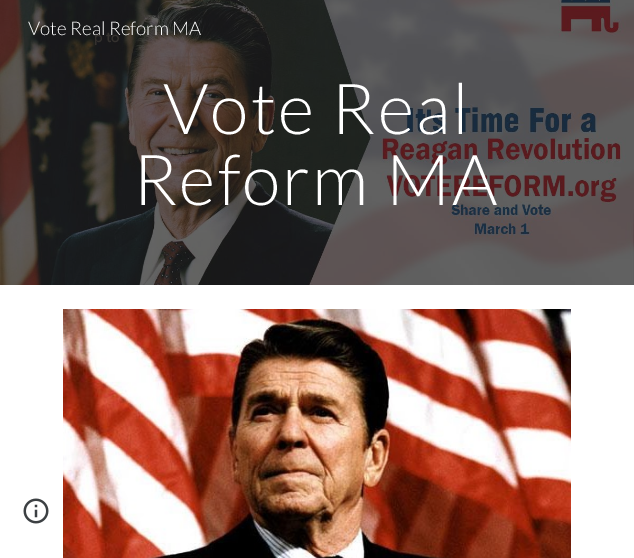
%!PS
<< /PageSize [634 558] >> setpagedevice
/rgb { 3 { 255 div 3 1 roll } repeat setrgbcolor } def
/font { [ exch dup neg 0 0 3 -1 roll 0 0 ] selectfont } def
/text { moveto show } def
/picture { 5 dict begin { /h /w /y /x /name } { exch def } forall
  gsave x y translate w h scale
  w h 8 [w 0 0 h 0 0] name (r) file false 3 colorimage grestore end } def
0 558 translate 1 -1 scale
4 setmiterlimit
255 255 255 rgb
0 0 634 558 rectfill
(img_01.rgb) 0 0 634 285 picture
(img_02.rgb) 63 309 508 249 picture
(img_03.rgb) 23 498 26 26 picture
/Lato-Light 18.75 font
(Vote Real Reform MA) 28 35 text
/Lato-Light 70.5 font
163 134 moveto 2 0 (Vote Real) ashow
133 205 moveto 2 0 (Reform MA) ashow
/GoogleSans-Medium 14 font
52 49 46 rgb
(p to) 94 42 text
showpage
